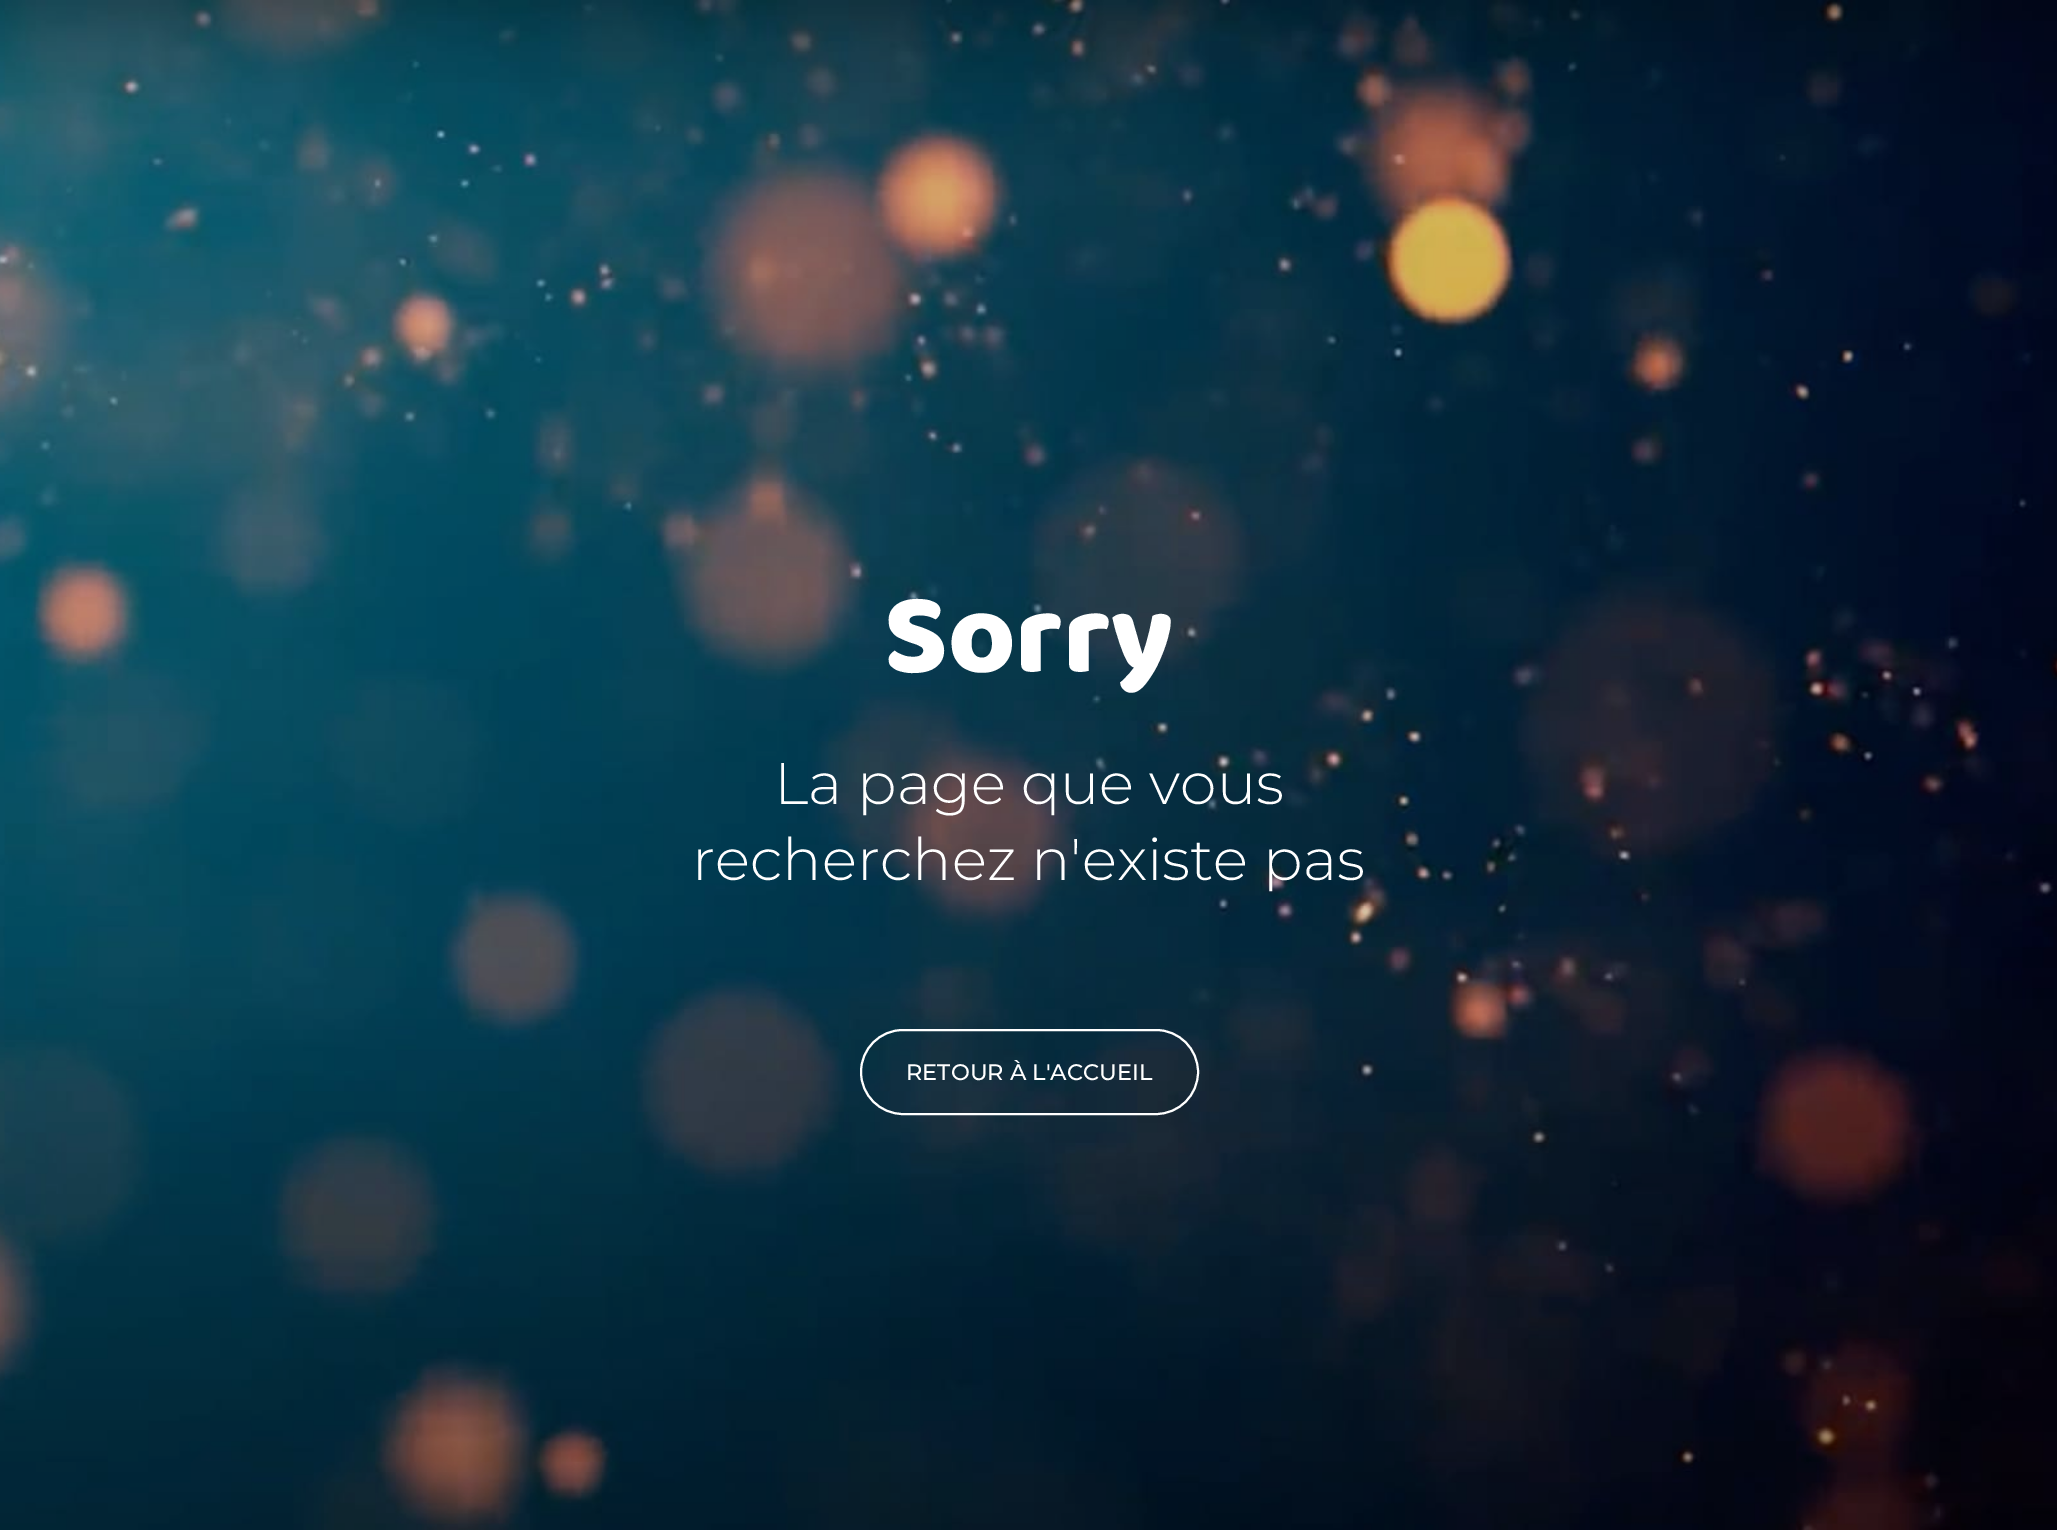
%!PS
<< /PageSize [2057 1530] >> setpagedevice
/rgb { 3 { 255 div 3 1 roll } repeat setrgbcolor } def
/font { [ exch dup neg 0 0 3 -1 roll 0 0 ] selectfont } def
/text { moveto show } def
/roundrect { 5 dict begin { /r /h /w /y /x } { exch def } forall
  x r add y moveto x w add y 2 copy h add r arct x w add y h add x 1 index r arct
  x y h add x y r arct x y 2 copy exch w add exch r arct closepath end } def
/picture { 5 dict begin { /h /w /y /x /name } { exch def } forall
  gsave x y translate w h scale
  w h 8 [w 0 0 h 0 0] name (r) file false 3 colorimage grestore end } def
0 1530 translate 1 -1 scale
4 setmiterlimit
255 255 255 rgb
0 0 2057 1530 rectfill
(img_01.rgb) 0 0 2057 1530 picture
2 setlinewidth
861 1030 337 84 42 roundrect stroke
/BalooBhai2-ExtraBold 115.5 font
(Sorry) 884 671 text
/Montserrat-Light 58.5 font
(La page que vous) 774 804 text
(recherchez n'existe pas) 692 880 text
/Montserrat-Medium 22.5 font
(RETOUR À L'ACCUEIL) 906 1080 text
showpage
